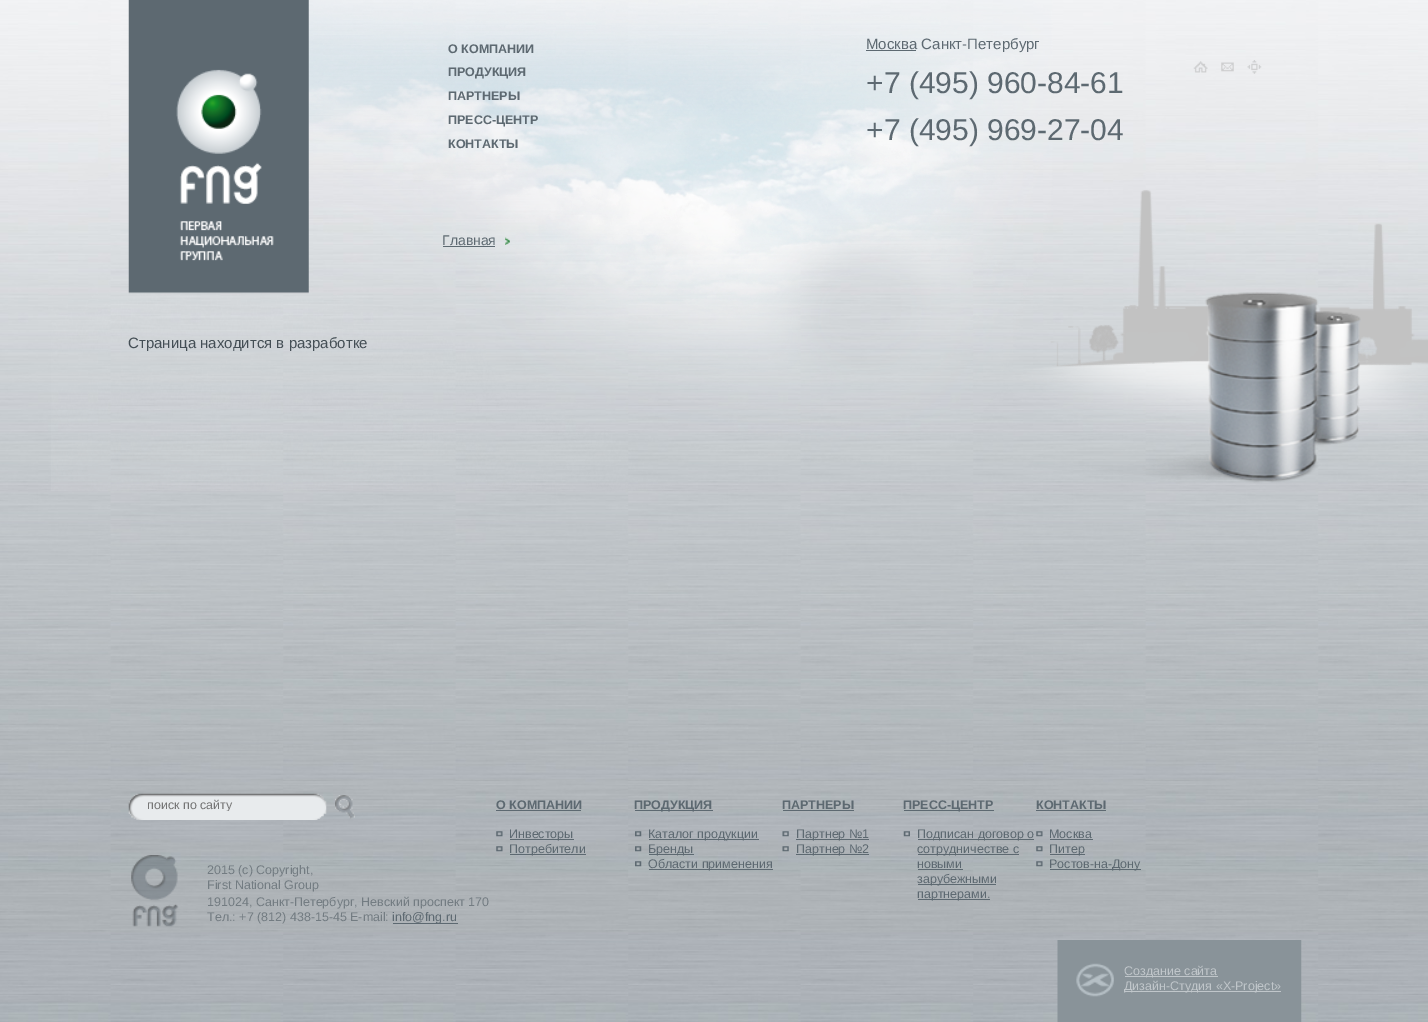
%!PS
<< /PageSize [1428 1022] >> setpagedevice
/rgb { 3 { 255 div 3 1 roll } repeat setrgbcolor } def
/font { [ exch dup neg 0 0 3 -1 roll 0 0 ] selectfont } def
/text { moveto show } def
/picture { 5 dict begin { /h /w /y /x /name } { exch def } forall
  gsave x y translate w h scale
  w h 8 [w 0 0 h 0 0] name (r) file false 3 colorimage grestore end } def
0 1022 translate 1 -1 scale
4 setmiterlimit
255 255 255 rgb
0 0 1428 1022 rectfill
(img_01.rgb) 0 0 1428 1022 picture
(img_02.rgb) 51 0 1377 491 picture
(img_03.rgb) 128 0 181 294 picture
93 105 113 rgb
866 50 50 1 rectfill
(img_04.rgb) 1193 61 15 12 picture
(img_05.rgb) 1221 62 13 10 picture
(img_06.rgb) 1247 60 15 14 picture
443 246 52 1 rectfill
(img_07.rgb) 505 237 5 8 picture
(img_08.rgb) 128 793 199 27 picture
(img_09.rgb) 335 795 20 24 picture
(img_10.rgb) 131 855 48 72 picture
393 923 65 1 rectfill
496 810 85 1 rectfill
(img_11.rgb) 496 831 7 6 picture
510 839 64 1 rectfill
(img_12.rgb) 496 846 7 6 picture
510 854 76 1 rectfill
635 810 78 1 rectfill
(img_13.rgb) 635 831 7 6 picture
649 839 110 1 rectfill
(img_14.rgb) 635 846 7 6 picture
649 854 45 1 rectfill
(img_15.rgb) 635 861 7 6 picture
649 869 124 1 rectfill
783 810 71 1 rectfill
(img_16.rgb) 782 831 7 6 picture
796 839 73 1 rectfill
(img_17.rgb) 782 846 7 6 picture
796 854 73 1 rectfill
904 810 90 1 rectfill
(img_18.rgb) 903 831 7 6 picture
918 839 116 1 rectfill
918 854 101 1 rectfill
918 869 45 1 rectfill
918 884 78 1 rectfill
918 899 72 1 rectfill
1036 810 70 1 rectfill
(img_19.rgb) 1036 831 7 6 picture
1050 839 43 1 rectfill
(img_20.rgb) 1036 846 7 6 picture
1050 854 35 1 rectfill
(img_21.rgb) 1036 861 7 6 picture
1050 869 91 1 rectfill
(img_22.rgb) 1057 940 245 82 picture
192 198 202 rgb
1125 976 93 1 rectfill
1125 991 156 1 rectfill
/LiberationSans-Bold 12.5 font
93 105 113 rgb
(О КОМПАНИИ) 448 53 text
(ПРОДУКЦИЯ) 448 76 text
(ПАРТНЕРЫ) 448 100 text
(ПРЕСС-ЦЕНТР) 448 124 text
(КОНТАКТЫ) 448 148 text
/LiberationSans-Regular 15 font
(Москва Санкт-Петербург) 866 49 text
/LiberationSans-Regular 30 font
(+7 \(495\) 960-84-61) 866 93 text
(+7 \(495\) 969-27-04) 866 140 text
/LiberationSans-Regular 14 font
(Главная) 442 245 text
/LiberationSans-Regular 15 font
68 78 85 rgb
(Страница находится в разработке) 128 348 text
gsave
148 798 165 13 rectclip
/LiberationSans-Regular 12.5 font
117 117 117 rgb
(поиск по сайту) 147 809 text
grestore
/LiberationSans-Regular 12.5 font
115 124 130 rgb
(2015 \(с\) Copyright,) 207 874 text
(First National Group) 207 889 text
(191024, Санкт-Петербург, Невский проспект 170) 207 906 text
(Тел.: +7 \(812\) 438-15-45 E-mail:) 207 921 text
93 105 113 rgb
(info@fng.ru) 392 921 text
/LiberationSans-Bold 12.5 font
(О КОМПАНИИ) 496 809 text
/LiberationSans-Regular 12.5 font
(Инвесторы) 509 838 text
(Потребители) 509 853 text
/LiberationSans-Bold 12.5 font
(ПРОДУКЦИЯ) 634 809 text
/LiberationSans-Regular 12.5 font
(Каталог продукции) 648 838 text
(Бренды) 648 853 text
(Области применения) 648 868 text
/LiberationSans-Bold 12.5 font
(ПАРТНЕРЫ) 782 809 text
/LiberationSans-Regular 12.5 font
(Партнер №1) 796 838 text
(Партнер №2) 796 853 text
/LiberationSans-Bold 12.5 font
(ПРЕСС-ЦЕНТР) 903 809 text
/LiberationSans-Regular 12.5 font
(Подписан договор о) 917 838 text
(сотрудничестве с) 917 853 text
(новыми) 917 868 text
(зарубежными) 917 883 text
(партнерами.) 917 898 text
/LiberationSans-Bold 12.5 font
(КОНТАКТЫ) 1036 809 text
/LiberationSans-Regular 12.5 font
(Москва) 1049 838 text
(Питер) 1049 853 text
(Ростов-на-Дону) 1049 868 text
192 198 202 rgb
(Создание сайта) 1124 975 text
(Дизайн-Студия «X-Project») 1124 990 text
showpage
